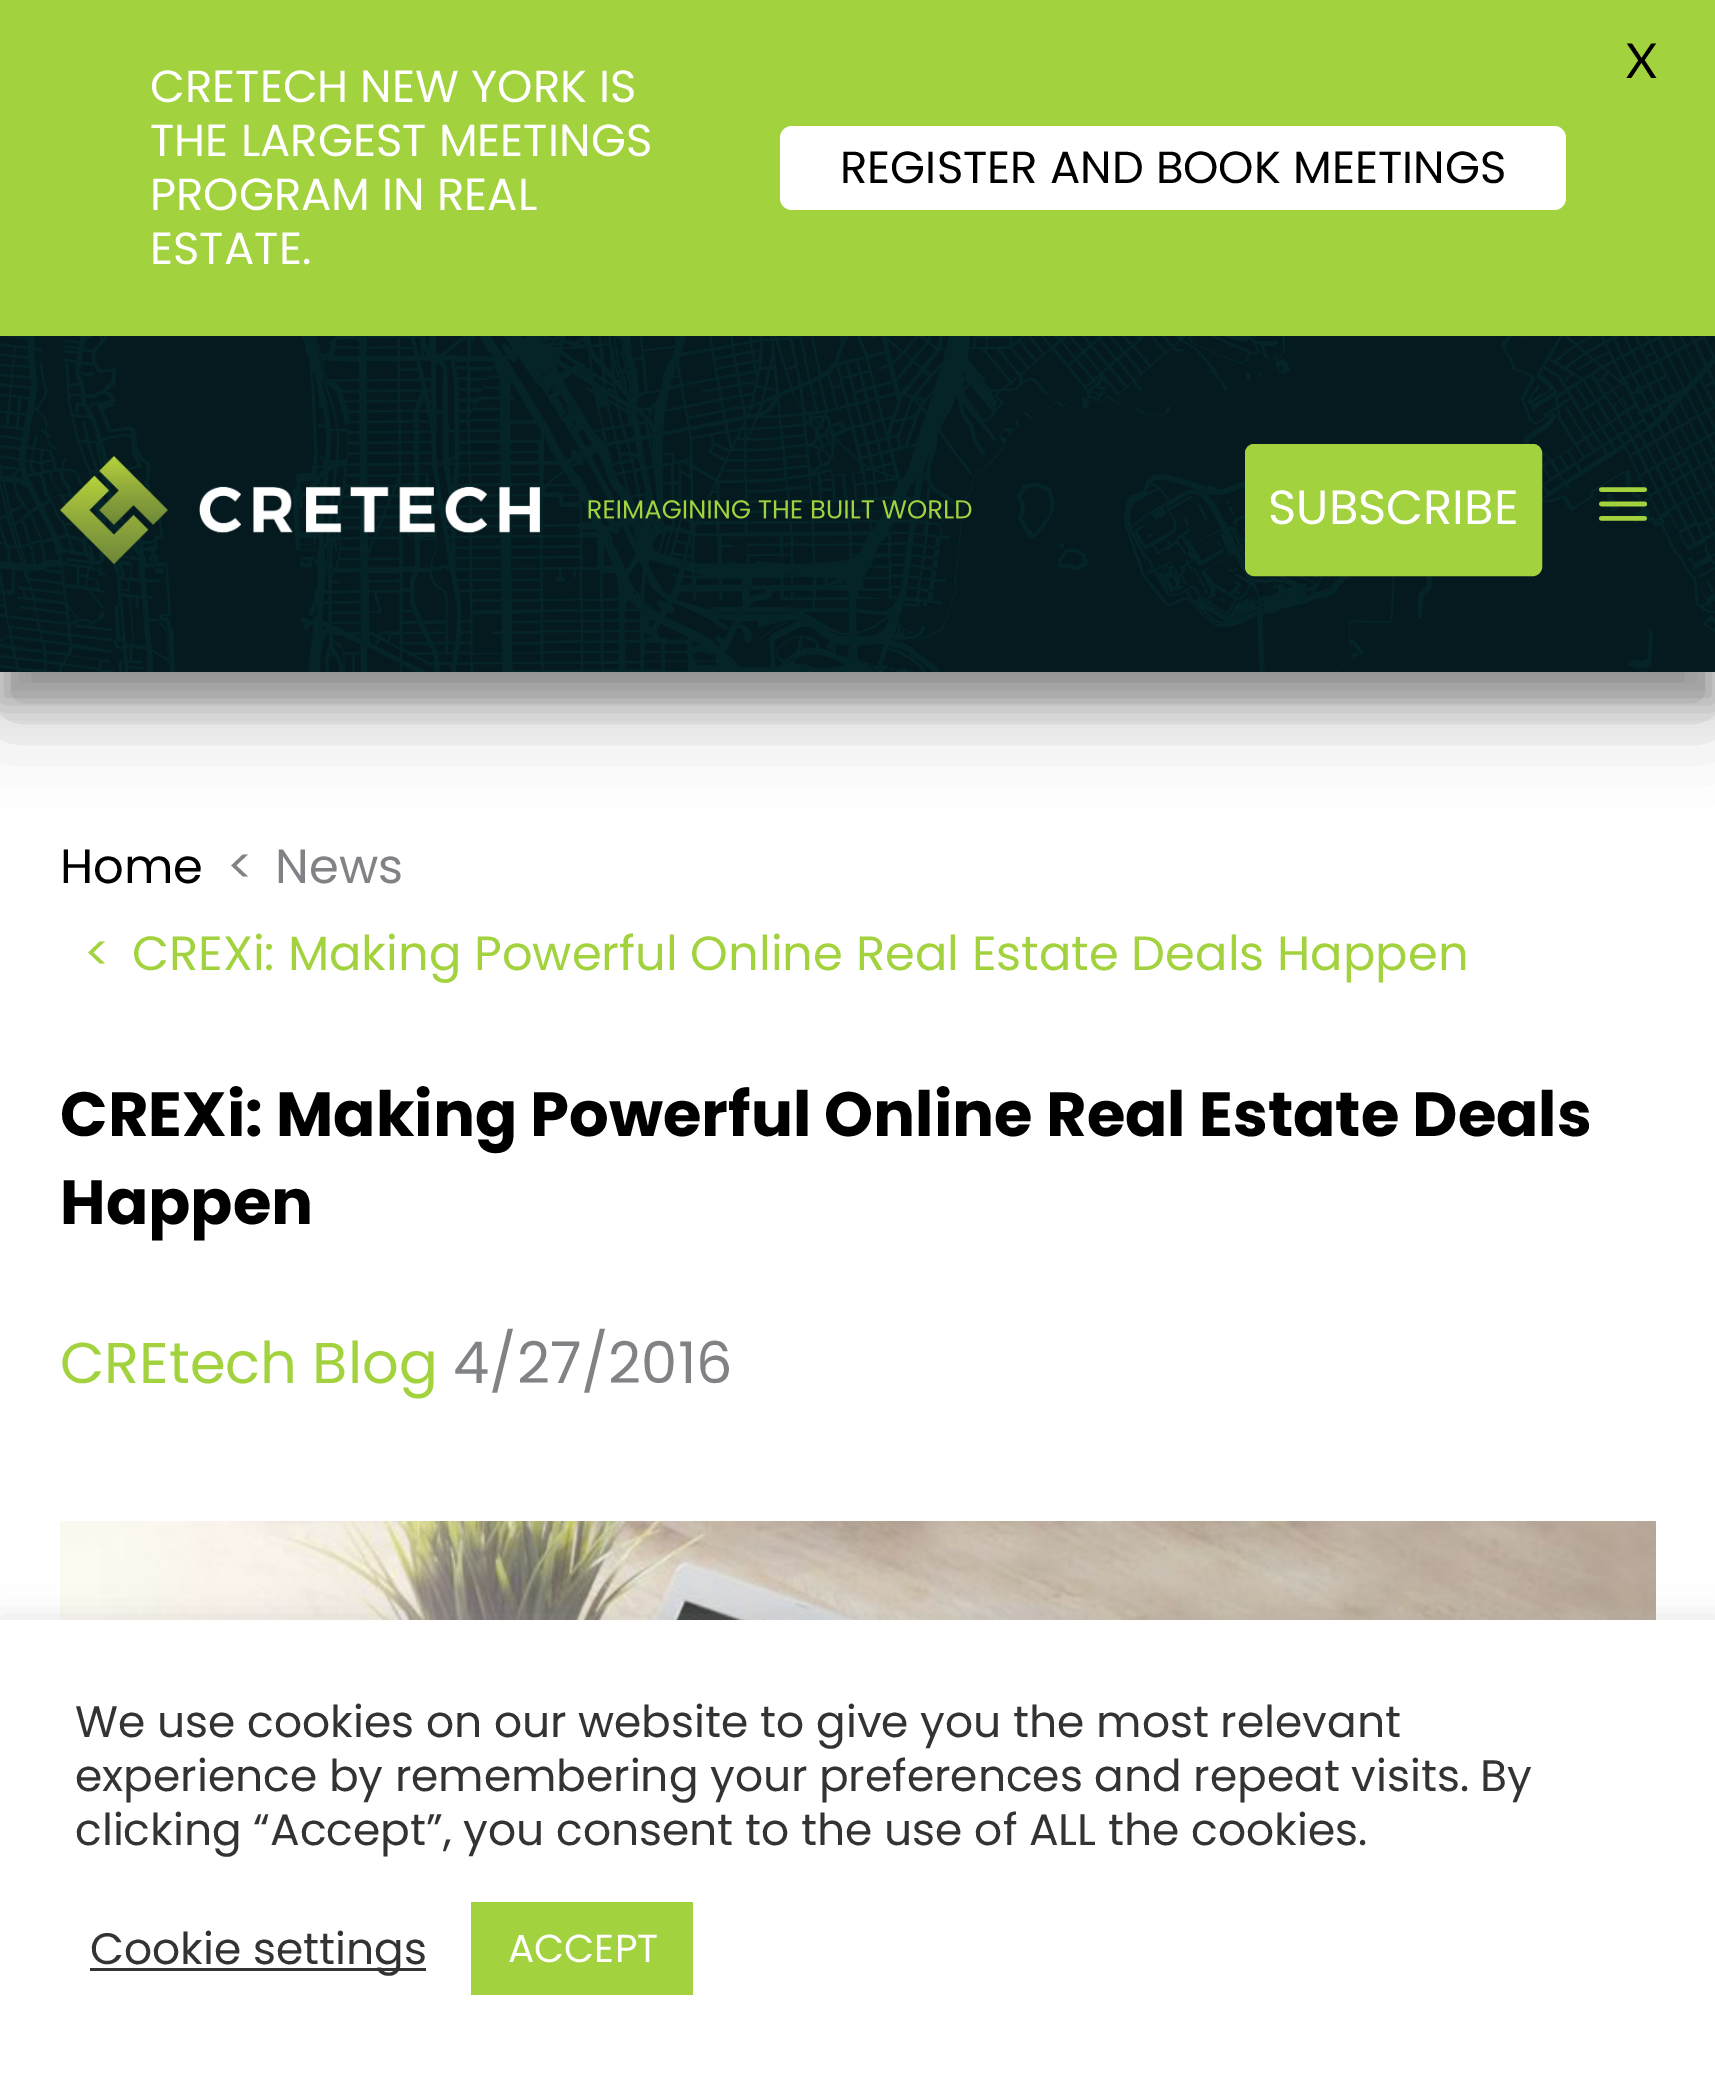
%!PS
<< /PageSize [1715 2085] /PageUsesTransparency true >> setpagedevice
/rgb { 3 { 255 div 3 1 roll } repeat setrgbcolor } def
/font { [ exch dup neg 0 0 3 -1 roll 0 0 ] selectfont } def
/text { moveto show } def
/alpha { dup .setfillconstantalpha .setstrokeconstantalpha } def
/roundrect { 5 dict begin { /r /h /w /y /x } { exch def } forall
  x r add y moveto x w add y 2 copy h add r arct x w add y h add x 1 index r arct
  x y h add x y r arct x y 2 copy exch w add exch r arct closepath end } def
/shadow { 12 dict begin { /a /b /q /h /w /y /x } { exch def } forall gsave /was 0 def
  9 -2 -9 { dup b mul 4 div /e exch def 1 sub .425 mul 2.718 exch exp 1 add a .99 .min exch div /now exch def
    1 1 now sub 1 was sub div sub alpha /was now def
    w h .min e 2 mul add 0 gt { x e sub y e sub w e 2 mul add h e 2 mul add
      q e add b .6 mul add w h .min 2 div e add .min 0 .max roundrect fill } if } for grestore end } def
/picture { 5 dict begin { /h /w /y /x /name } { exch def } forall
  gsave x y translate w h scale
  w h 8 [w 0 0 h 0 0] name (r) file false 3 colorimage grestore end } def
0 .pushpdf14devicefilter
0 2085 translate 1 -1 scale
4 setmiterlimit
255 255 255 rgb
0 0 1715 2085 rectfill
0 0 0 rgb
0 366 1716 336 0 15 0.25 shadow
0 378 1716 336 0 42 0.25 shadow
162 210 62 rgb
0 0 1715 336 rectfill
255 255 255 rgb
780 126 786 84 12 roundrect fill
(img_01.rgb) 0 336 1715 336 picture
(img_02.rgb) 60 456 480 108 picture
(img_03.rgb) 588 500 384 19 picture
162 210 62 rgb
1246.5 445.5 294 129 7.5 roundrect gsave fill grestore
3 setlinewidth
stroke
(img_04.rgb) 1599 487 48 34 picture
(img_05.rgb) 60 1521 1596 99 picture
172 171 171 rgb
0 1617 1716 465 0 15 0.3 shadow
255 255 255 rgb
0 1620 1715 465 rectfill
51 51 51 rgb
90 1968 336 3 rectfill
162 210 62 rgb
471 1902 222 93 rectfill
/Lato-Regular 48 font
0 0 0 rgb
(X) 1626 78 text
/Poppins-Regular 45 font
255 255 255 rgb
(CRETECH NEW YORK IS) 150 102 text
(THE LARGEST MEETINGS) 150 156 text
(PROGRAM IN REAL) 150 210 text
(ESTATE.) 150 264 text
0 0 0 rgb
(REGISTER AND BOOK MEETINGS) 840 183 text
/Poppins-Regular 48 font
255 255 255 rgb
(SUBSCRIBE) 1268 524 text
0 0 0 rgb
(Home) 60 883 text
128 130 133 rgb
(<) 227 883 text
(News) 275 883 text
162 210 62 rgb
(<) 84 970 text
(CREXi: Making Powerful Online Real Estate Deals Happen) 132 970 text
/Poppins-Bold 62.4 font
0 0 0 rgb
(CREXi: Making Powerful Online Real Estate Deals) 60 1136 text
(Happen) 60 1224 text
/Poppins-Regular 57.5 font
162 210 62 rgb
(CREtech Blog) 60 1383 text
128 130 133 rgb
(4/27/2016) 453 1383 text
/Poppins-Regular 44 font
51 51 51 rgb
(We use cookies on our website to give you the most relevant) 75 1737 text
75 1791 moveto -0.25 0 32 (experience by remembering your preferences and repeat visits. By) widthshow
(clicking “Accept”, you consent to the use of ALL the cookies.) 75 1845 text
(Cookie settings) 90 1964 text
/Poppins-Regular 39 font
255 255 255 rgb
(ACCEPT) 508 1962 text
.poppdf14devicefilter showpage
